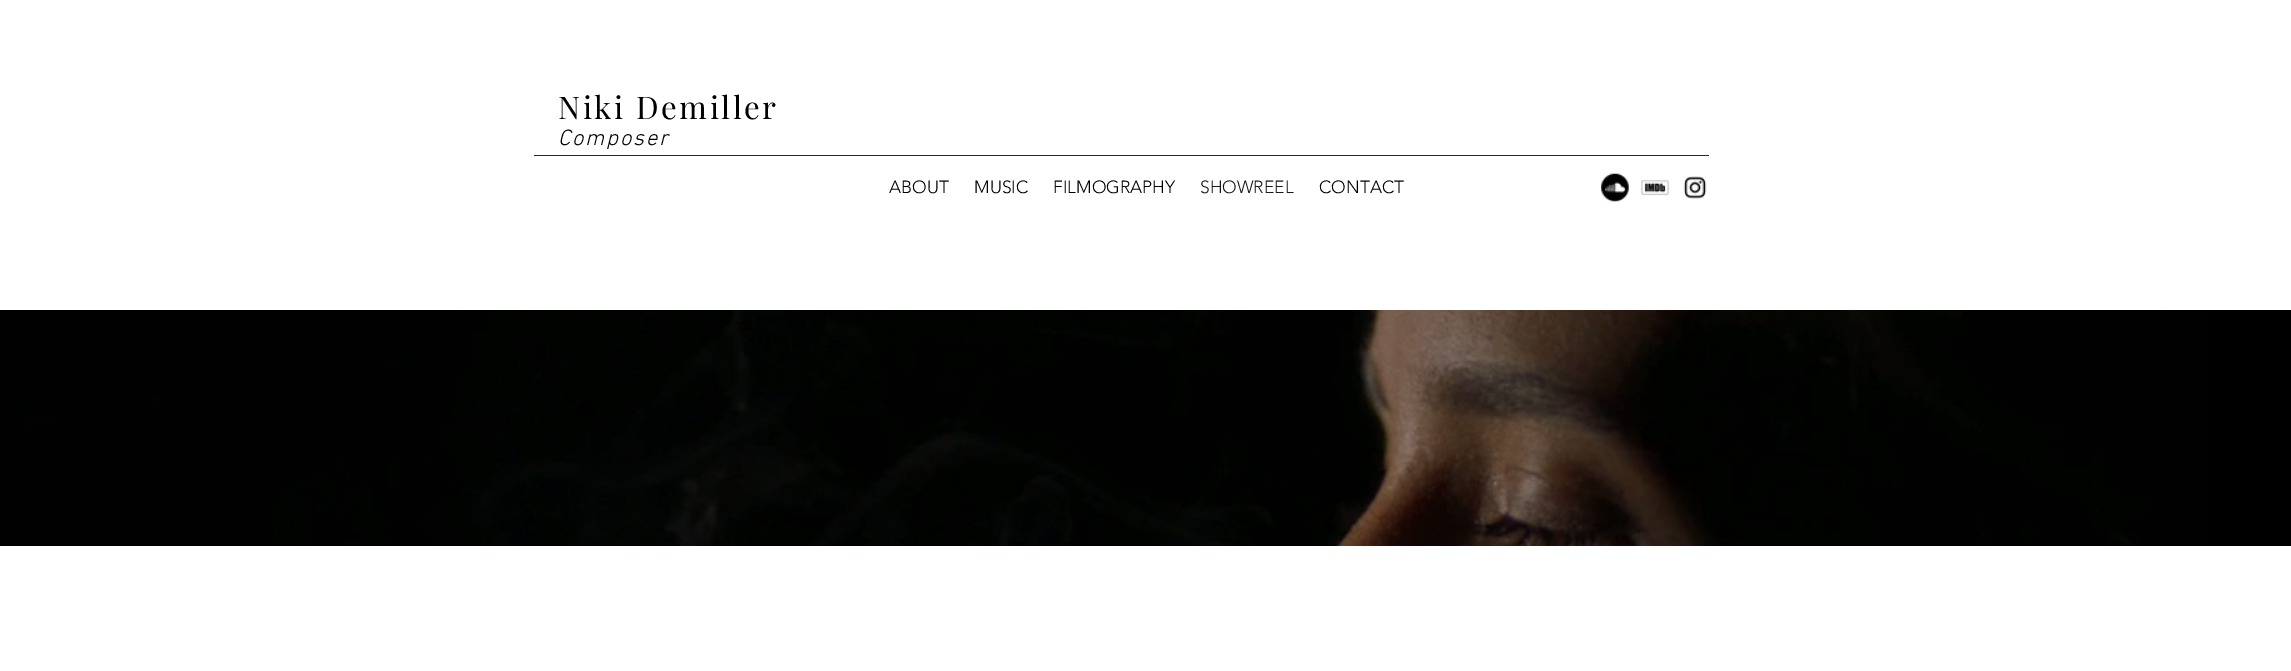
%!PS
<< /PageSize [2291 671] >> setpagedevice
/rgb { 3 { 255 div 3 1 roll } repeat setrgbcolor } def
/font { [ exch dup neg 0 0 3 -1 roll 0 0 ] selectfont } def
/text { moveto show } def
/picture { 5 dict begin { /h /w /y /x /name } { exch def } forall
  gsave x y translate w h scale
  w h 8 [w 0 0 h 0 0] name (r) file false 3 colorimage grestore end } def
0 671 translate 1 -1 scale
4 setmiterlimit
255 255 255 rgb
0 0 2291 671 rectfill
38 38 38 rgb
534 155 1175 1 rectfill
(img_01.rgb) 1601 173 28 29 picture
(img_02.rgb) 1641 180 28 16 picture
(img_03.rgb) 1683 176 24 23 picture
0 0 0 rgb
2201 310 90 236 rectfill
(img_04.rgb) 0 310 2201 236 picture
(img_05.rgb) 1298 354 270 192 picture
/PlayfairDisplay-Regular 31.25 font
558 119 moveto 2.5 0 (Niki Demiller) ashow
/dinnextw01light-LightItalic 22.5 font
558 145 moveto 1.75 0 (Composer) ashow
/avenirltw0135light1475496-Light 17.5 font
(ABOUT) 889 193 text
(MUSIC) 974 193 text
(FILMOGRAPHY) 1053 193 text
25 25 25 rgb
(SHOWREEL) 1200 193 text
0 0 0 rgb
(CONTACT) 1319 193 text
showpage
